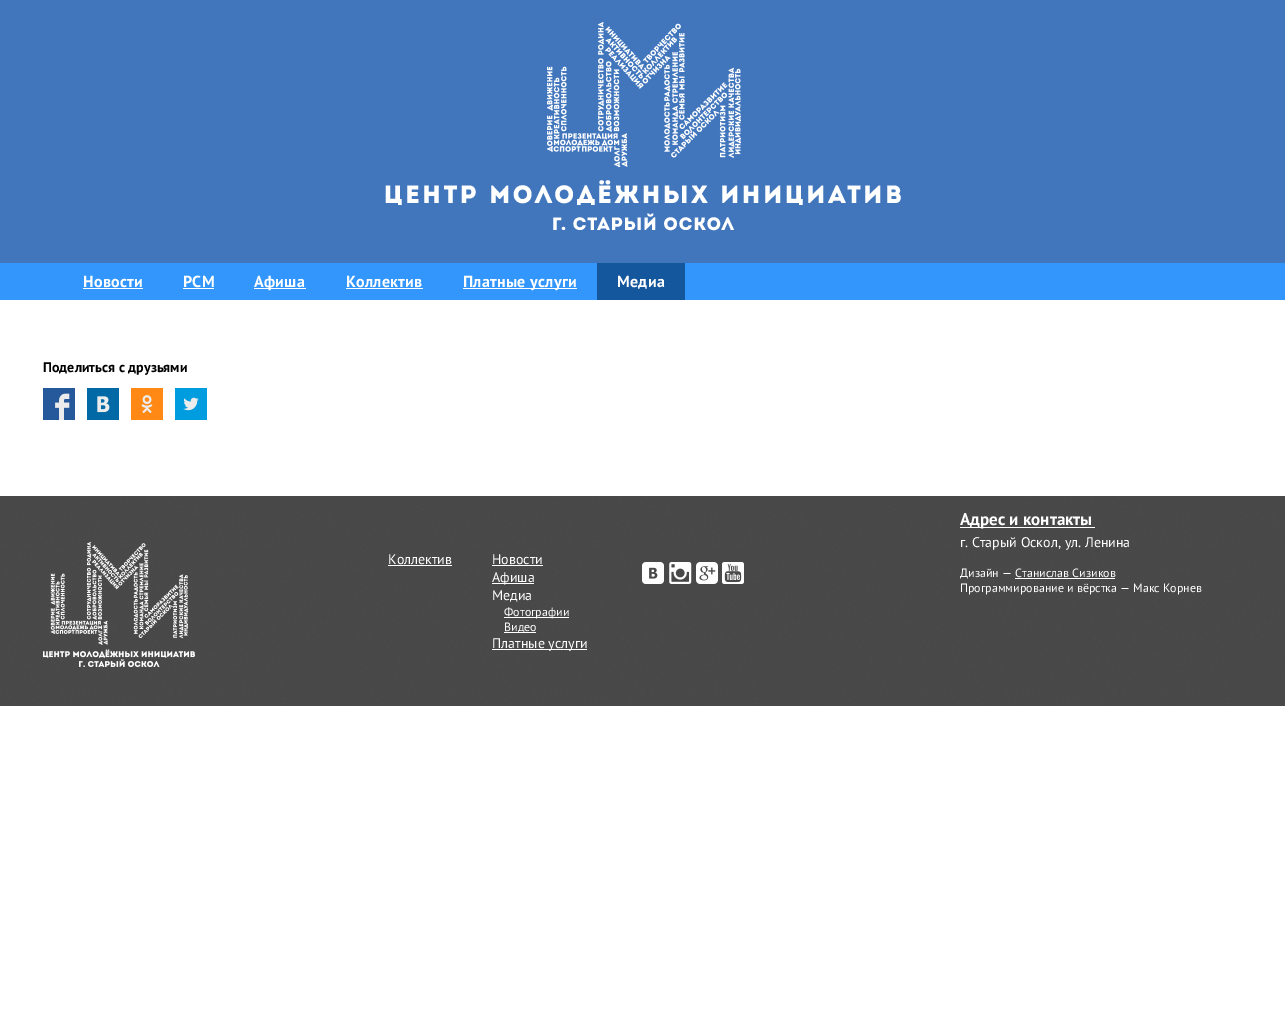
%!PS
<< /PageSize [1285 1010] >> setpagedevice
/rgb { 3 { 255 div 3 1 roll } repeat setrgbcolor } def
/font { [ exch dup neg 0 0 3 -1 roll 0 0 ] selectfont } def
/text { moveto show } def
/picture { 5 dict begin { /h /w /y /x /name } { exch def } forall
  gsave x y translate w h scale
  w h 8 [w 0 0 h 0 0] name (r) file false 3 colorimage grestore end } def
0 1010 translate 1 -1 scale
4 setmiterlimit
255 255 255 rgb
0 0 1285 1010 rectfill
65 118 188 rgb
0 0 1285 263 rectfill
(img_01.rgb) 385 22 516 209 picture
50 150 252 rgb
0 263 1285 37 rectfill
255 255 255 rgb
83 288 60 1 rectfill
183 288 31 1 rectfill
254 288 52 1 rectfill
346 288 77 1 rectfill
463 288 114 1 rectfill
20 87 156 rgb
597 263 88 37 rectfill
236 236 236 rgb
55 393 15 27 rectfill
(img_02.rgb) 43 388 32 32 picture
97 396 13 17 rectfill
(img_03.rgb) 87 388 32 32 picture
141 395 12 18 rectfill
(img_04.rgb) 131 388 32 32 picture
183 397 16 14 rectfill
(img_05.rgb) 175 388 32 32 picture
67 67 67 rgb
0 496 1285 210 rectfill
(img_06.rgb) 0 496 1285 210 picture
(img_07.rgb) 43 542 152 125 picture
255 255 255 rgb
388 565 64 1 rectfill
492 565 51 1 rectfill
492 583 42 1 rectfill
504 617 65 1 rectfill
504 632 32 1 rectfill
492 649 95 1 rectfill
(img_08.rgb) 642 562 22 22 picture
(img_09.rgb) 669 562 23 22 picture
(img_10.rgb) 696 562 22 22 picture
(img_11.rgb) 722 562 22 22 picture
960 527 135 1 rectfill
1015 578 100 1 rectfill
/PTSans-Bold 16 font
83 287 moveto 0.25 0 (Новости) ashow
183 287 moveto 0.25 0 (РСМ) ashow
254 287 moveto 0.25 0 (Афиша) ashow
346 287 moveto 0.25 0 (Коллектив) ashow
463 287 moveto 0.25 0 (Платные услуги) ashow
617 287 moveto 0.25 0 (Медиа) ashow
/PTSans-Bold 14 font
0 0 0 rgb
(Поделиться с друзьями) 43 372 text
/PTSans-Regular 14 font
255 255 255 rgb
(Коллектив) 388 564 text
(Новости) 492 564 text
(Афиша) 492 582 text
(Медиа) 492 600 text
/PTSans-Regular 12 font
(Фотографии) 504 616 text
(Видео) 504 631 text
/PTSans-Regular 14 font
(Платные услуги) 492 648 text
/PTSans-Bold 17 font
(Адрес и контакты) 960 525 text
/PTSans-Regular 14 font
(г. Старый Оскол, ул. Ленина) 960 547 text
/PTSans-Regular 12 font
(Дизайн — Станислав Сизиков) 960 577 text
(Программирование и вёрстка — Макс Корнев) 960 592 text
showpage
